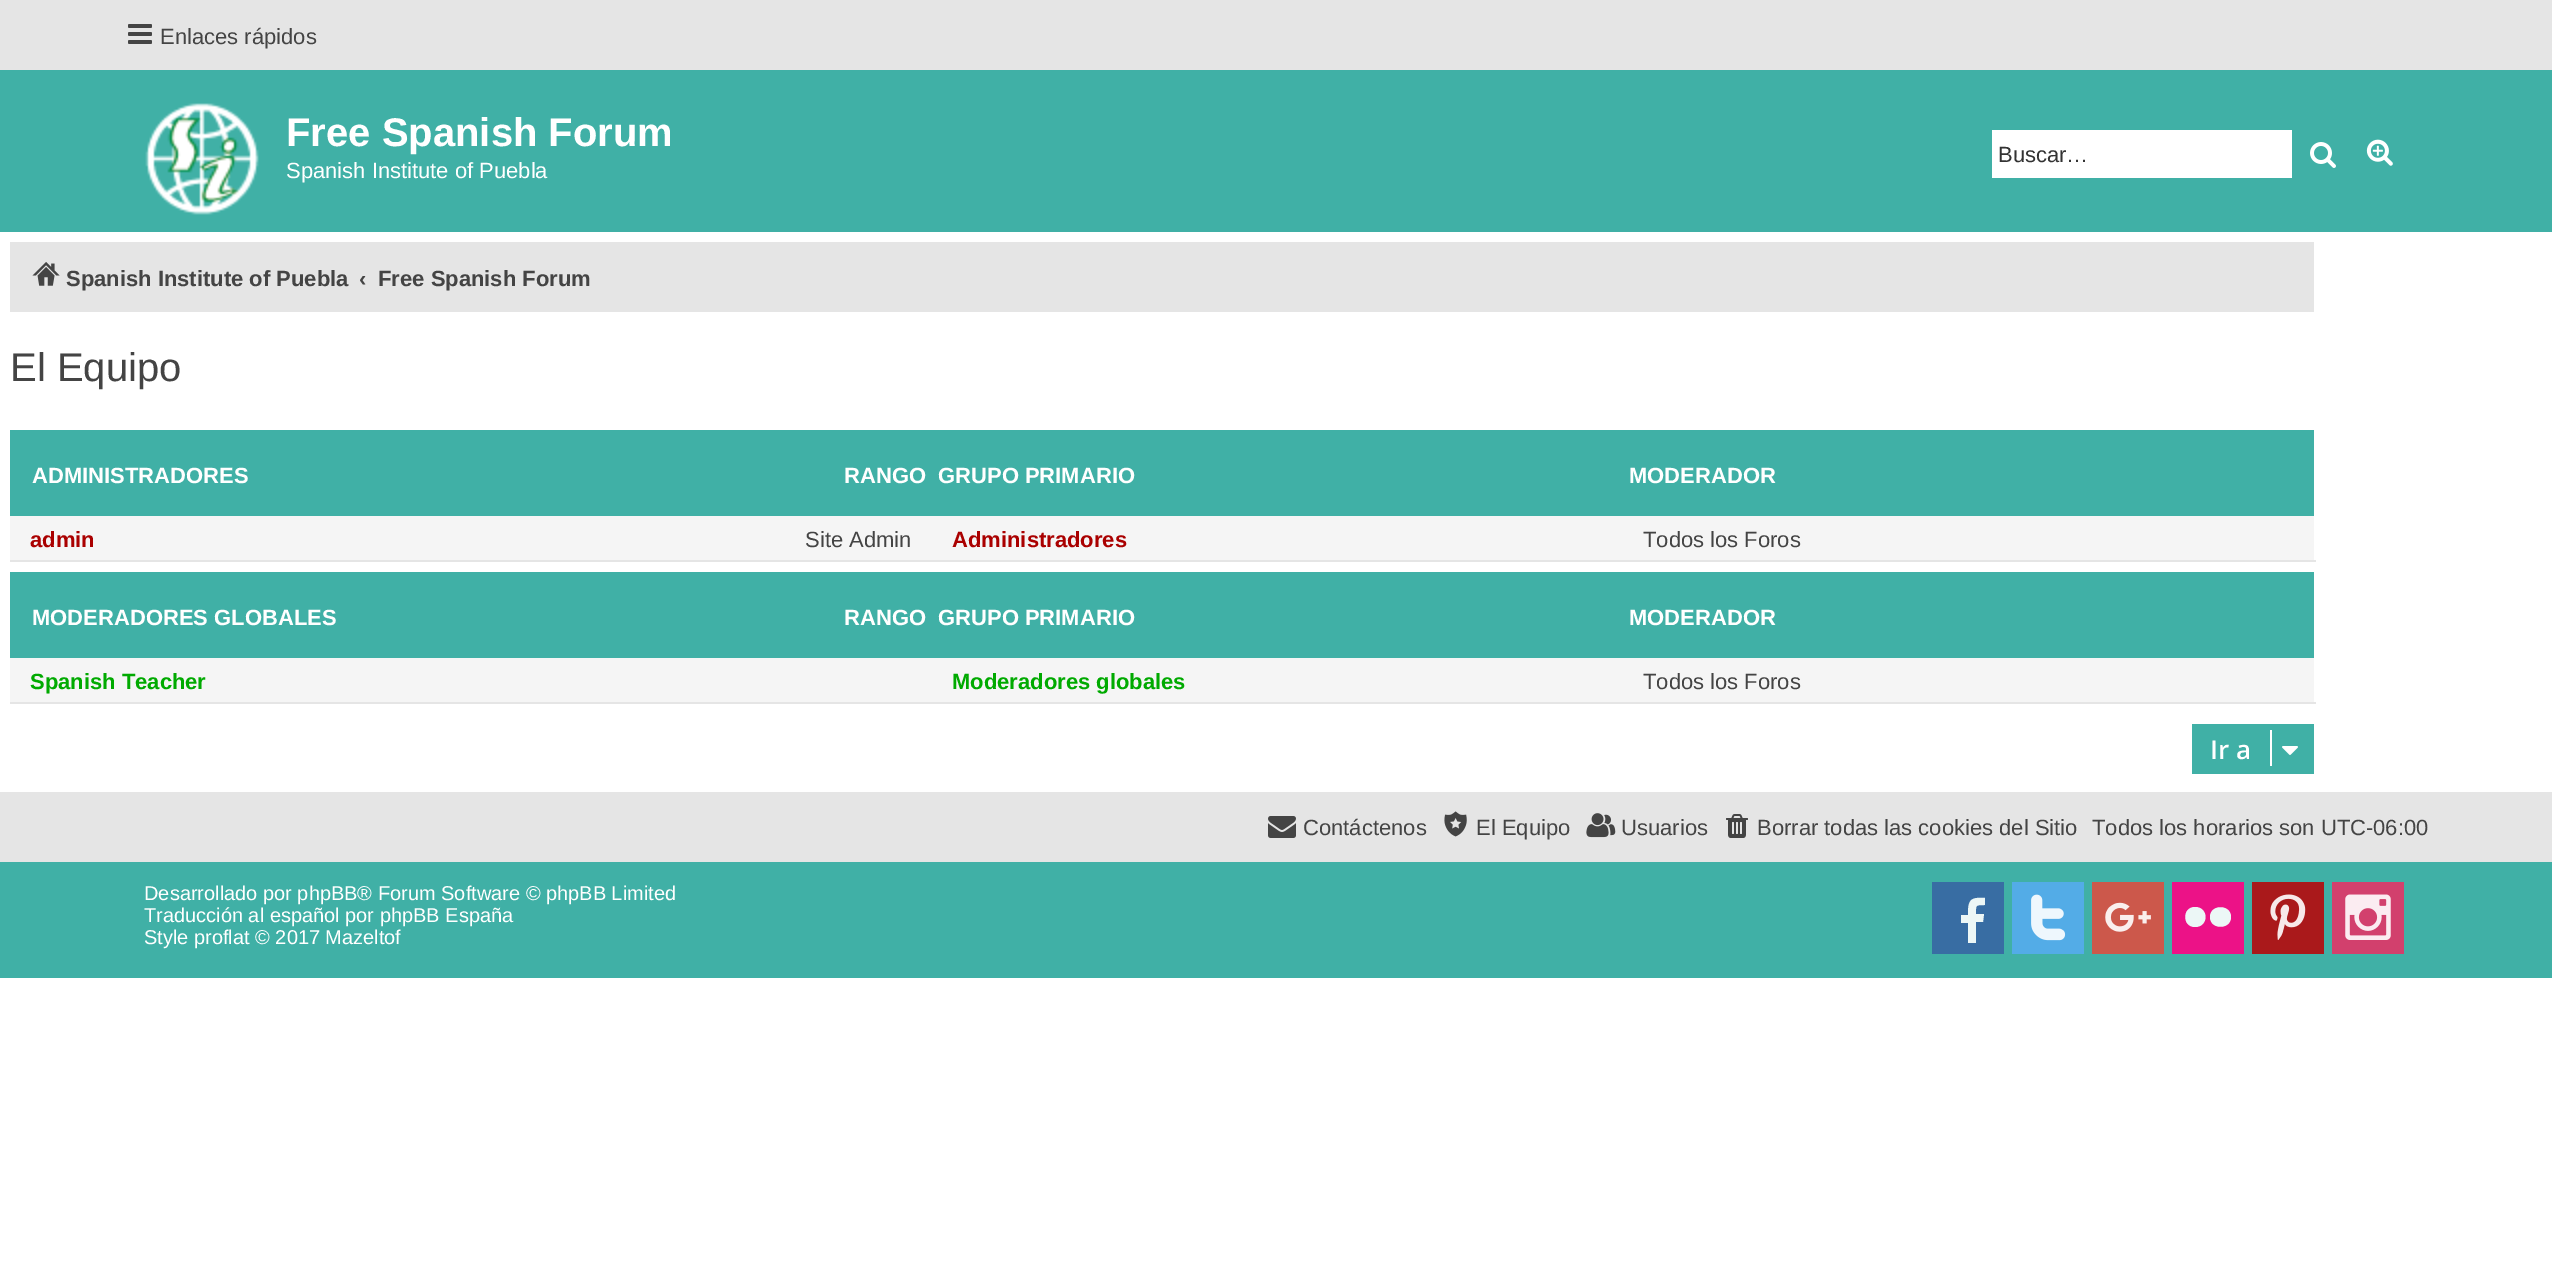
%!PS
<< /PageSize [2552 1268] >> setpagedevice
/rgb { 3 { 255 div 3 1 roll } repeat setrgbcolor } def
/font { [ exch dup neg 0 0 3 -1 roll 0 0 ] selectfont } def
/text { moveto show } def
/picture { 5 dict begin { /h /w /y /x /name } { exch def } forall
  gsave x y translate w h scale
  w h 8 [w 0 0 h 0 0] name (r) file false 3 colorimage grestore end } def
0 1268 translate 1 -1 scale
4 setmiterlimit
255 255 255 rgb
0 0 2552 1268 rectfill
229 229 229 rgb
0 0 2552 70 rectfill
(img_01.rgb) 128 24 24 20 picture
64 176 166 rgb
0 70 2552 162 rectfill
(img_02.rgb) 145 103 114 112 picture
255 255 255 rgb
1992 130 300 48 rectfill
(img_03.rgb) 2310 142 26 26 picture
(img_04.rgb) 2366 139 27 27 picture
229 229 229 rgb
10 242 2304 70 rectfill
(img_05.rgb) 32 262 28 24 picture
64 176 166 rgb
10 430 2304 86 rectfill
245 245 245 rgb
10 516 2304 44 rectfill
229 229 229 rgb
10 560 2306 2 rectfill
64 176 166 rgb
10 572 2304 86 rectfill
245 245 245 rgb
10 658 2304 44 rectfill
229 229 229 rgb
10 702 2306 2 rectfill
64 176 166 rgb
2192 724 122 50 rectfill
255 255 255 rgb
2270 730 2 36 rectfill
(img_06.rgb) 2282 746 16 9 picture
229 229 229 rgb
0 792 2552 70 rectfill
(img_07.rgb) 1268 816 28 22 picture
(img_08.rgb) 1444 811 23 26 picture
(img_09.rgb) 1586 813 30 25 picture
(img_10.rgb) 1726 814 22 24 picture
64 176 166 rgb
0 862 2552 116 rectfill
56 109 163 rgb
1932 882 72 72 rectfill
236 247 246 rgb
1985 898 moveto 0 7 rlineto -10 0 -9 0 -9 9 rcurveto 8 0 rlineto -1 8 rlineto -7 0 rlineto 0 21 rlineto -8 0 rlineto 0 -20 rlineto -7 0 rlineto 0 -8 rlineto 7 0 rlineto 0 -15 2 -18 17 -17 rcurveto closepath fill
83 172 231 rgb
2012 882 72 72 rectfill
(img_11.rgb) 2031 894 35 47 picture
204 88 75 rgb
2092 882 72 72 rectfill
(img_12.rgb) 2105 902 46 30 picture
236 18 135 rgb
2172 882 72 72 rectfill
236 247 246 rgb
2231 917 moveto 0 13 -21 13 -21 0 rcurveto 0 -13 21 -13 21 0 rcurveto closepath 2195 907 moveto -13 0 -13 20 0 20 rcurveto 14 0 14 -20 0 -20 rcurveto closepath fill
170 25 27 rgb
2252 882 72 72 rectfill
(img_13.rgb) 2270 894 36 46 picture
210 64 109 rgb
2332 882 72 72 rectfill
(img_14.rgb) 2345 894 46 46 picture
/LiberationSans-Regular 22 font
68 68 68 rgb
(Enlaces rápidos) 160 44 text
/LiberationSans-Bold 40 font
255 255 255 rgb
(Free Spanish Forum) 286 146 text
/LiberationSans-Regular 22 font
(Spanish Institute of Puebla) 286 178 text
51 51 51 rgb
(Buscar…) 1998 162 text
/LiberationSans-Bold 22 font
68 68 68 rgb
(Spanish Institute of Puebla) 66 286 text
(‹) 359 286 text
(Free Spanish Forum) 378 286 text
/LiberationSans-Regular 40 font
(El Equipo) 10 381 text
/LiberationSans-Bold 22 font
255 255 255 rgb
(ADMINISTRADORES) 32 483 text
(RANGO) 844 483 text
(GRUPO PRIMARIO) 938 483 text
(MODERADOR) 1629 483 text
170 0 0 rgb
(admin) 30 547 text
/LiberationSans-Regular 22 font
68 68 68 rgb
(Site Admin) 805 547 text
/LiberationSans-Bold 22 font
170 0 0 rgb
(Administradores) 952 547 text
/LiberationSans-Regular 22 font
68 68 68 rgb
(Todos los Foros) 1643 547 text
/LiberationSans-Bold 22 font
255 255 255 rgb
(MODERADORES GLOBALES) 32 625 text
(RANGO) 844 625 text
(GRUPO PRIMARIO) 938 625 text
(MODERADOR) 1629 625 text
0 170 0 rgb
(Spanish Teacher) 30 689 text
(Moderadores globales) 952 689 text
/LiberationSans-Regular 22 font
68 68 68 rgb
(Todos los Foros) 1643 689 text
/OpenSans-SemiBold 26 font
255 255 255 rgb
(Ir a) 2210 759 text
/LiberationSans-Regular 22 font
68 68 68 rgb
(Contáctenos) 1303 835 text
(El Equipo) 1476 835 text
(Usuarios) 1621 835 text
(Borrar todas las cookies del Sitio) 1757 835 text
(Todos los horarios son UTC-06:00) 2092 835 text
/LiberationSans-Regular 20 font
255 255 255 rgb
(Desarrollado por phpBB® Forum Software © phpBB Limited) 144 900 text
(Traducción al español por phpBB España) 144 922 text
(Style proflat © 2017 Mazeltof) 144 944 text
showpage
